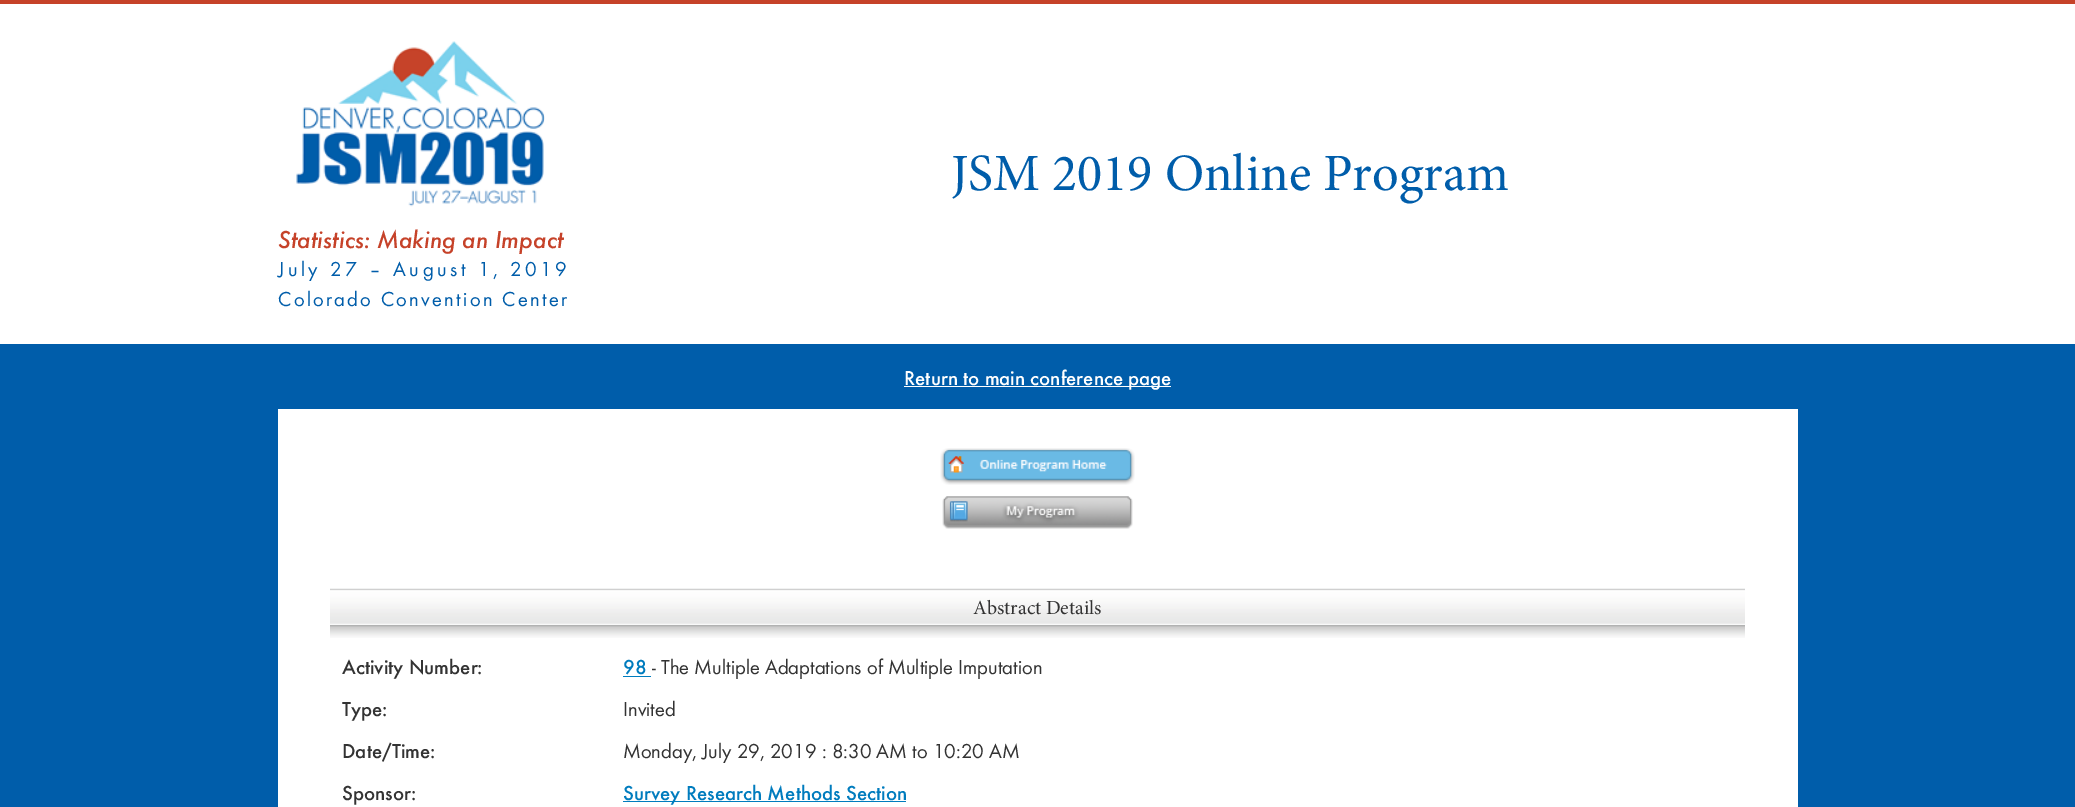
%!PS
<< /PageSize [2075 807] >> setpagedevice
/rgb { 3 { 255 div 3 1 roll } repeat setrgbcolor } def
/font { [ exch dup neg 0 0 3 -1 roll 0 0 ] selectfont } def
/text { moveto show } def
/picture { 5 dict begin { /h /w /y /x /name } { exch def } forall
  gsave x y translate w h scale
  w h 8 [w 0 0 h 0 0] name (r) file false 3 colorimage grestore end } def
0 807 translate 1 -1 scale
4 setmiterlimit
0 93 170 rgb
0 0 2075 807 rectfill
255 255 255 rgb
0 4 2075 340 rectfill
198 66 41 rgb
0 0 2075 4 rectfill
(img_01.rgb) 296 41 249 166 picture
255 255 255 rgb
904 386 267 1 rectfill
278 409 1520 398 rectfill
(img_02.rgb) 940 448 195 37 picture
(img_03.rgb) 942 496 191 33 picture
(img_04.rgb) 330 588 1415 50 picture
0 124 190 rgb
623 676 28 1 rectfill
623 801 283 1 rectfill
/Minion-Regular 52.5 font
0 93 170 rgb
(JSM 2019 Online Program) 951 190 text
/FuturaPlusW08-Italic 25.5 font
198 66 41 rgb
(Statistics: Making an Impact) 278 248 text
/FuturaPlusW08-Regular 21 font
0 93 170 rgb
278 276 moveto 3.5 0 (July 27 – August 1, 2019) ashow
278 306 moveto 2.3 0 (Colorado Convention Center) ashow
/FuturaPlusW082-Regular 21 font
255 255 255 rgb
(Return to main conference page) 904 385 text
/Minion-Regular 20 font
51 51 51 rgb
(Abstract Details) 973 614 text
/FuturaPlusW082-Regular 21 font
(Activity Number:) 342 674 text
0 124 190 rgb
(98) 623 674 text
/FuturaPlusW08-Regular 21 font
51 51 51 rgb
(- The Multiple Adaptations of Multiple Imputation) 652 674 text
/FuturaPlusW082-Regular 21 font
(Type:) 342 716 text
/FuturaPlusW08-Regular 21 font
(Invited) 623 716 text
/FuturaPlusW082-Regular 21 font
(Date/Time:) 342 758 text
/FuturaPlusW08-Regular 21 font
(Monday, July 29, 2019 : 8:30 AM to 10:20 AM) 623 758 text
/FuturaPlusW082-Regular 21 font
(Sponsor:) 342 800 text
0 124 190 rgb
(Survey Research Methods Section) 623 800 text
showpage
